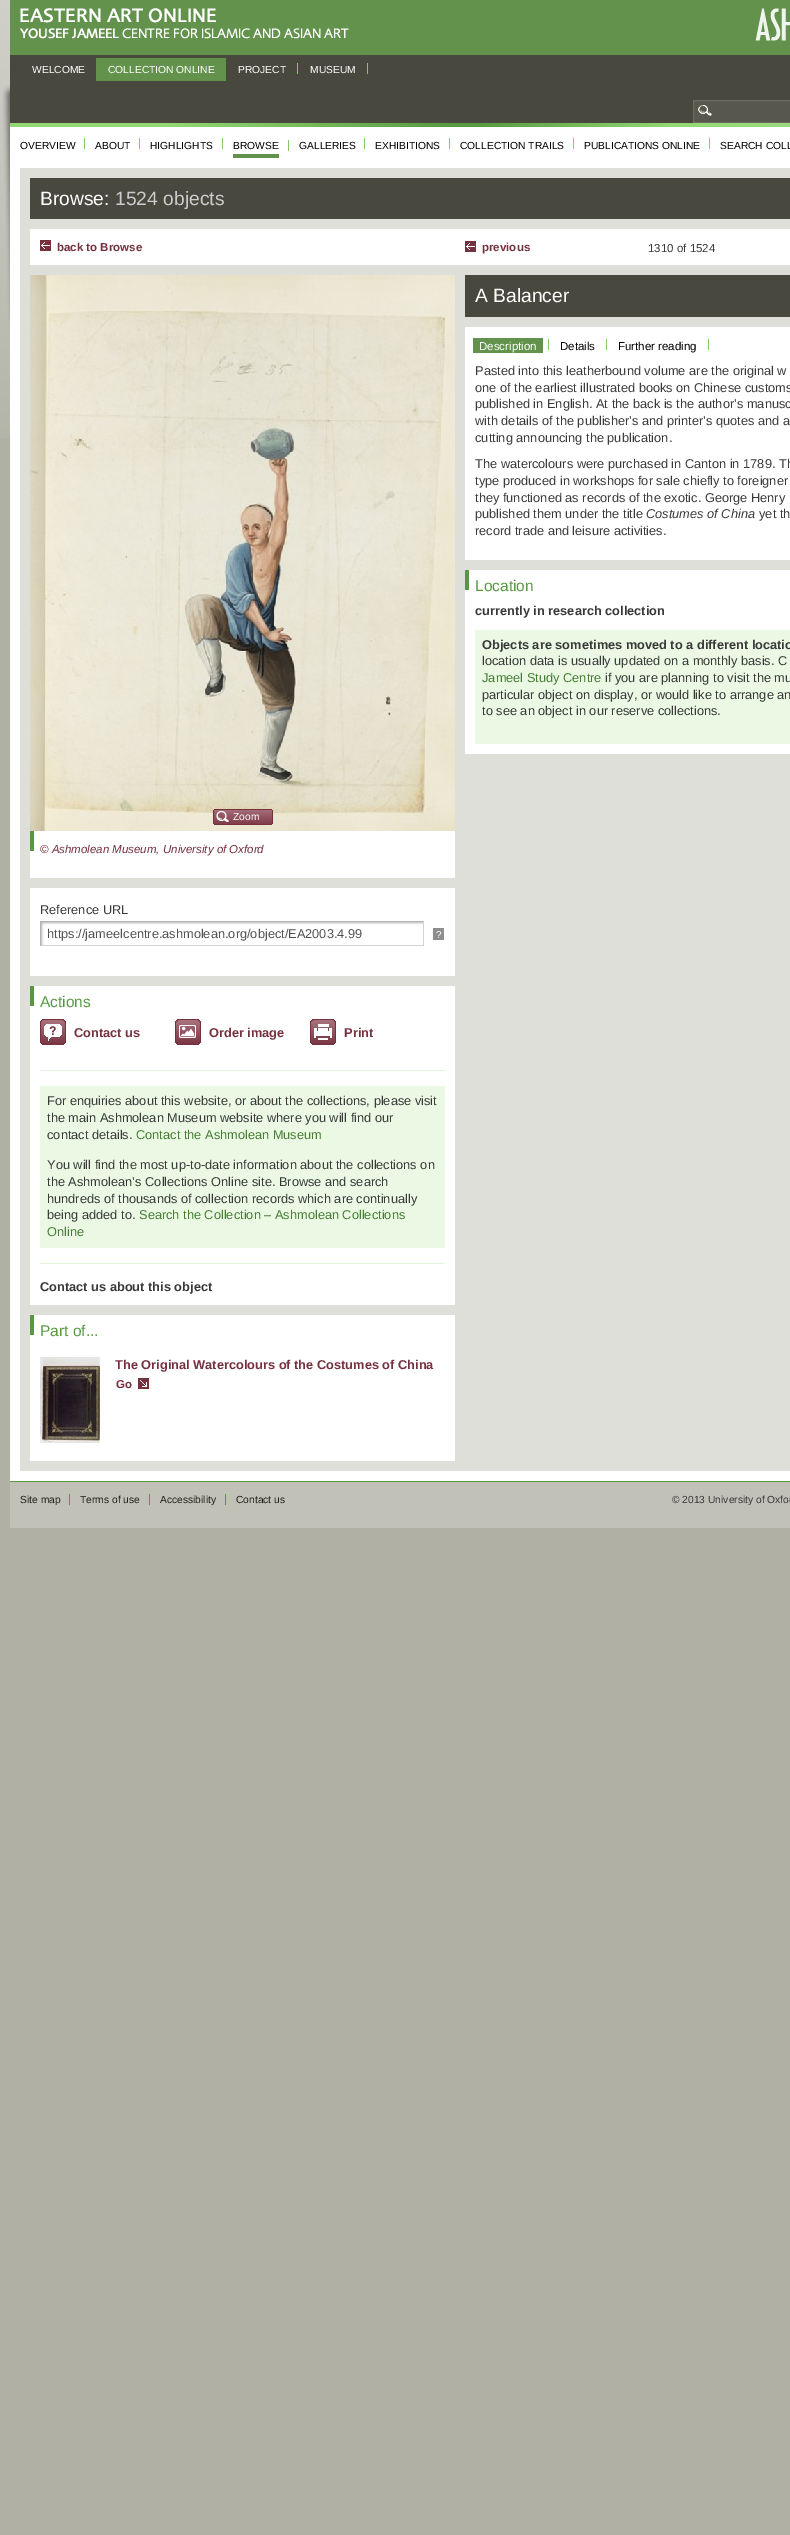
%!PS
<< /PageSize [790 2535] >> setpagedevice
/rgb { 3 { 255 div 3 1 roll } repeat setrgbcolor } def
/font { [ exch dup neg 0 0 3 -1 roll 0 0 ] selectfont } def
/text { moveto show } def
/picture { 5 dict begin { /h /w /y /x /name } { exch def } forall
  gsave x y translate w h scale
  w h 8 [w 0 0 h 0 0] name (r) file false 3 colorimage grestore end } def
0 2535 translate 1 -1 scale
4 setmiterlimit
176 176 165 rgb
0 0 790 2535 rectfill
(img_01.rgb) 0 0 10 438 picture
(img_02.rgb) 2 85 8 236 picture
98 146 76 rgb
10 0 780 55 rectfill
(img_03.rgb) 20 8 329 31 picture
(img_04.rgb) 755 8 35 33 picture
72 72 62 rgb
10 55 780 68 rectfill
98 146 76 rgb
96 58 130 23 rectfill
132 200 103 rgb
297 63 1 11 rectfill
367 63 1 11 rectfill
87 87 78 rgb
694 101 96 21 rectfill
(img_05.rgb) 698 105 14 11 picture
107 107 95 rgb
693.5 100.5 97 22 rectstroke
255 255 255 rgb
10 127 780 1354 rectfill
(img_06.rgb) 10 123 780 4 picture
132 200 103 rgb
84 138 1 11 rectfill
139 138 1 11 rectfill
222 138 1 11 rectfill
288 140 1 11 rectfill
98 146 76 rgb
233 154 46 4 rectfill
132 200 103 rgb
364 138 1 11 rectfill
449 138 1 11 rectfill
573 138 1 11 rectfill
709 138 1 11 rectfill
223 223 218 rgb
20 168 770 1303 rectfill
72 72 62 rgb
30 178 760 41 rectfill
255 255 255 rgb
30 229 760 36 rectfill
(img_07.rgb) 40 240 11 11 picture
(img_07.rgb) 465 241 11 11 picture
465 327 325 427 rectfill
72 72 62 rgb
465 275 325 42 rectfill
223 223 218 rgb
465 560 325 10 rectfill
132 200 103 rgb
548 339 1 11 rectfill
98 146 76 rgb
473 338 70 15 rectfill
132 200 103 rgb
606 339 1 11 rectfill
708 339 1 11 rectfill
88 153 64 rgb
465 570 4 20 rectfill
234 248 228 rgb
475 630 315 114 rectfill
255 255 255 rgb
30 831 425 630 rectfill
(img_08.rgb) 30 275 425 556 picture
(img_09.rgb) 213 809 60 16 picture
(img_10.rgb) 216 811 13 11 picture
88 153 64 rgb
30 831 4 20 rectfill
223 223 218 rgb
30 878 425 10 rectfill
30 976 425 10 rectfill
(img_11.rgb) 41 922 382 23 picture
180 180 180 rgb
40 921 384 1 rectfill
211 211 211 rgb
423 921 1 25 rectfill
40 945 384 1 rectfill
180 180 180 rgb
40 921 1 25 rectfill
142 142 142 rgb
433 928 11 12 rectfill
88 153 64 rgb
30 986 4 20 rectfill
223 223 218 rgb
30 1305 425 10 rectfill
(img_12.rgb) 40 1019 26 26 picture
(img_13.rgb) 175 1019 26 26 picture
(img_14.rgb) 310 1019 26 26 picture
227 245 219 rgb
40 1070 405 1 rectfill
234 248 228 rgb
40 1086 405 162 rectfill
227 245 219 rgb
40 1263 405 1 rectfill
88 153 64 rgb
30 1315 4 20 rectfill
(img_15.rgb) 40 1357 60 86 picture
(img_16.rgb) 138 1378 11 11 picture
193 193 184 rgb
10 1482 780 46 rectfill
88 153 64 rgb
10 1481 780 1 rectfill
98 146 76 rgb
69 1494 1 11 rectfill
149 1494 1 11 rectfill
225 1494 1 11 rectfill
/LiberationSans-Regular 10.25 font
255 255 255 rgb
(WELCOME) 32 73 text
(COLLECTION ONLINE) 108 73 text
(PROJECT) 238 73 text
(MUSEUM) 310 73 text
0 0 0 rgb
(OVERVIEW) 20 149 text
(ABOUT) 95 149 text
(HIGHLIGHTS) 150 149 text
(BROWSE) 233 149 text
(GALLERIES) 299 149 text
(EXHIBITIONS) 375 149 text
(COLLECTION TRAILS) 460 149 text
(PUBLICATIONS ONLINE) 584 149 text
(SEARCH COLL) 720 149 text
/LiberationSans-Regular 19.25 font
255 255 255 rgb
(Browse:) 40 205 text
204 204 204 rgb
(1524 objects) 115 205 text
/LiberationSans-Bold 11.5 font
118 49 63 rgb
(back to Browse) 57 251 text
(previous) 482 251 text
/LiberationSans-Regular 11.5 font
56 57 56 rgb
(1310 of 1524) 648 252 text
/LiberationSans-Regular 19.25 font
255 255 255 rgb
(A Balancer) 475 302 text
/LiberationSans-Regular 11.5 font
(Description) 479 350 text
0 0 0 rgb
(Details) 560 350 text
(Further reading) 618 350 text
/LiberationSans-Regular 12.8 font
56 57 56 rgb
(Pasted into this leatherbound volume are the original w) 475 375 text
(one of the earliest illustrated books on Chinese customs) 475 392 text
(published in English. At the back is the author’s manusc) 475 408 text
(with details of the publisher’s and printer’s quotes and a) 475 425 text
(cutting announcing the publication.) 475 442 text
(The watercolours were purchased in Canton in 1789. Th) 475 468 text
(type produced in workshops for sale chiefly to foreigner) 475 485 text
(they functioned as records of the exotic. George Henry) 475 502 text
(published them under the title) 475 518 text
/LiberationSans-Italic 12.8 font
(Costumes of China) 646 518 text
/LiberationSans-Regular 12.8 font
(yet th) 759 518 text
(record trade and leisure activities.) 475 535 text
/LiberationSans-Regular 15.5 font
88 153 64 rgb
(Location) 475 591 text
/LiberationSans-Bold 12.8 font
56 57 56 rgb
(currently in research collection) 475 615 text
(Objects are sometimes moved to a different locatio) 482 649 text
/LiberationSans-Regular 12.8 font
(location data is usually updated on a monthly basis. C) 482 665 text
70 125 51 rgb
(Jameel Study Centre) 482 682 text
56 57 56 rgb
(if you are planning to visit the mu) 605 682 text
(particular object on display, or would like to arrange an) 482 699 text
(to see an object in our reserve collections.) 482 715 text
/LiberationSans-Regular 10.25 font
255 255 255 rgb
(Zoom) 233 820 text
/LiberationSans-Italic 11.5 font
118 49 63 rgb
(© Ashmolean Museum, University of Oxford) 40 853 text
/LiberationSans-Regular 12.8 font
56 57 56 rgb
(Reference URL) 40 914 text
82 82 82 rgb
(https://jameelcentre.ashmolean.org/object/EA2003.4.99) 47 938 text
/LiberationSans-Regular 10 font
255 255 255 rgb
(?) 436 938 text
/LiberationSans-Regular 15.5 font
88 153 64 rgb
(Actions) 40 1007 text
/LiberationSans-Bold 12.8 font
118 49 63 rgb
(Contact us) 74 1037 text
(Order image) 209 1037 text
(Print) 344 1037 text
/LiberationSans-Regular 12.8 font
56 57 56 rgb
(For enquiries about this website, or about the collections, please visit) 47 1105 text
(the main Ashmolean Museum website where you will find our) 47 1122 text
(contact details.) 47 1139 text
70 125 51 rgb
(Contact the Ashmolean Museum) 136 1139 text
56 57 56 rgb
(You will find the most up-to-date information about the collections on) 47 1169 text
(the Ashmolean’s Collections Online site. Browse and search) 47 1186 text
(hundreds of thousands of collection records which are continually) 47 1203 text
(being added to.) 47 1219 text
70 125 51 rgb
(Search the Collection – Ashmolean Collections) 139 1219 text
(Online) 47 1236 text
/LiberationSans-Bold 12.8 font
56 57 56 rgb
(Contact us about this object) 40 1291 text
/LiberationSans-Regular 15.5 font
88 153 64 rgb
(Part of...) 40 1336 text
/LiberationSans-Bold 12.8 font
118 49 63 rgb
(The Original Watercolours of the Costumes of China) 115 1369 text
/LiberationSans-Bold 11.5 font
(Go) 116 1388 text
/LiberationSans-Regular 10.25 font
31 31 25 rgb
(Site map) 20 1503 text
(Terms of use) 80 1503 text
(Accessibility) 160 1503 text
(Contact us) 236 1503 text
56 57 56 rgb
(© 2013 University of Oxfor) 672 1503 text
showpage
